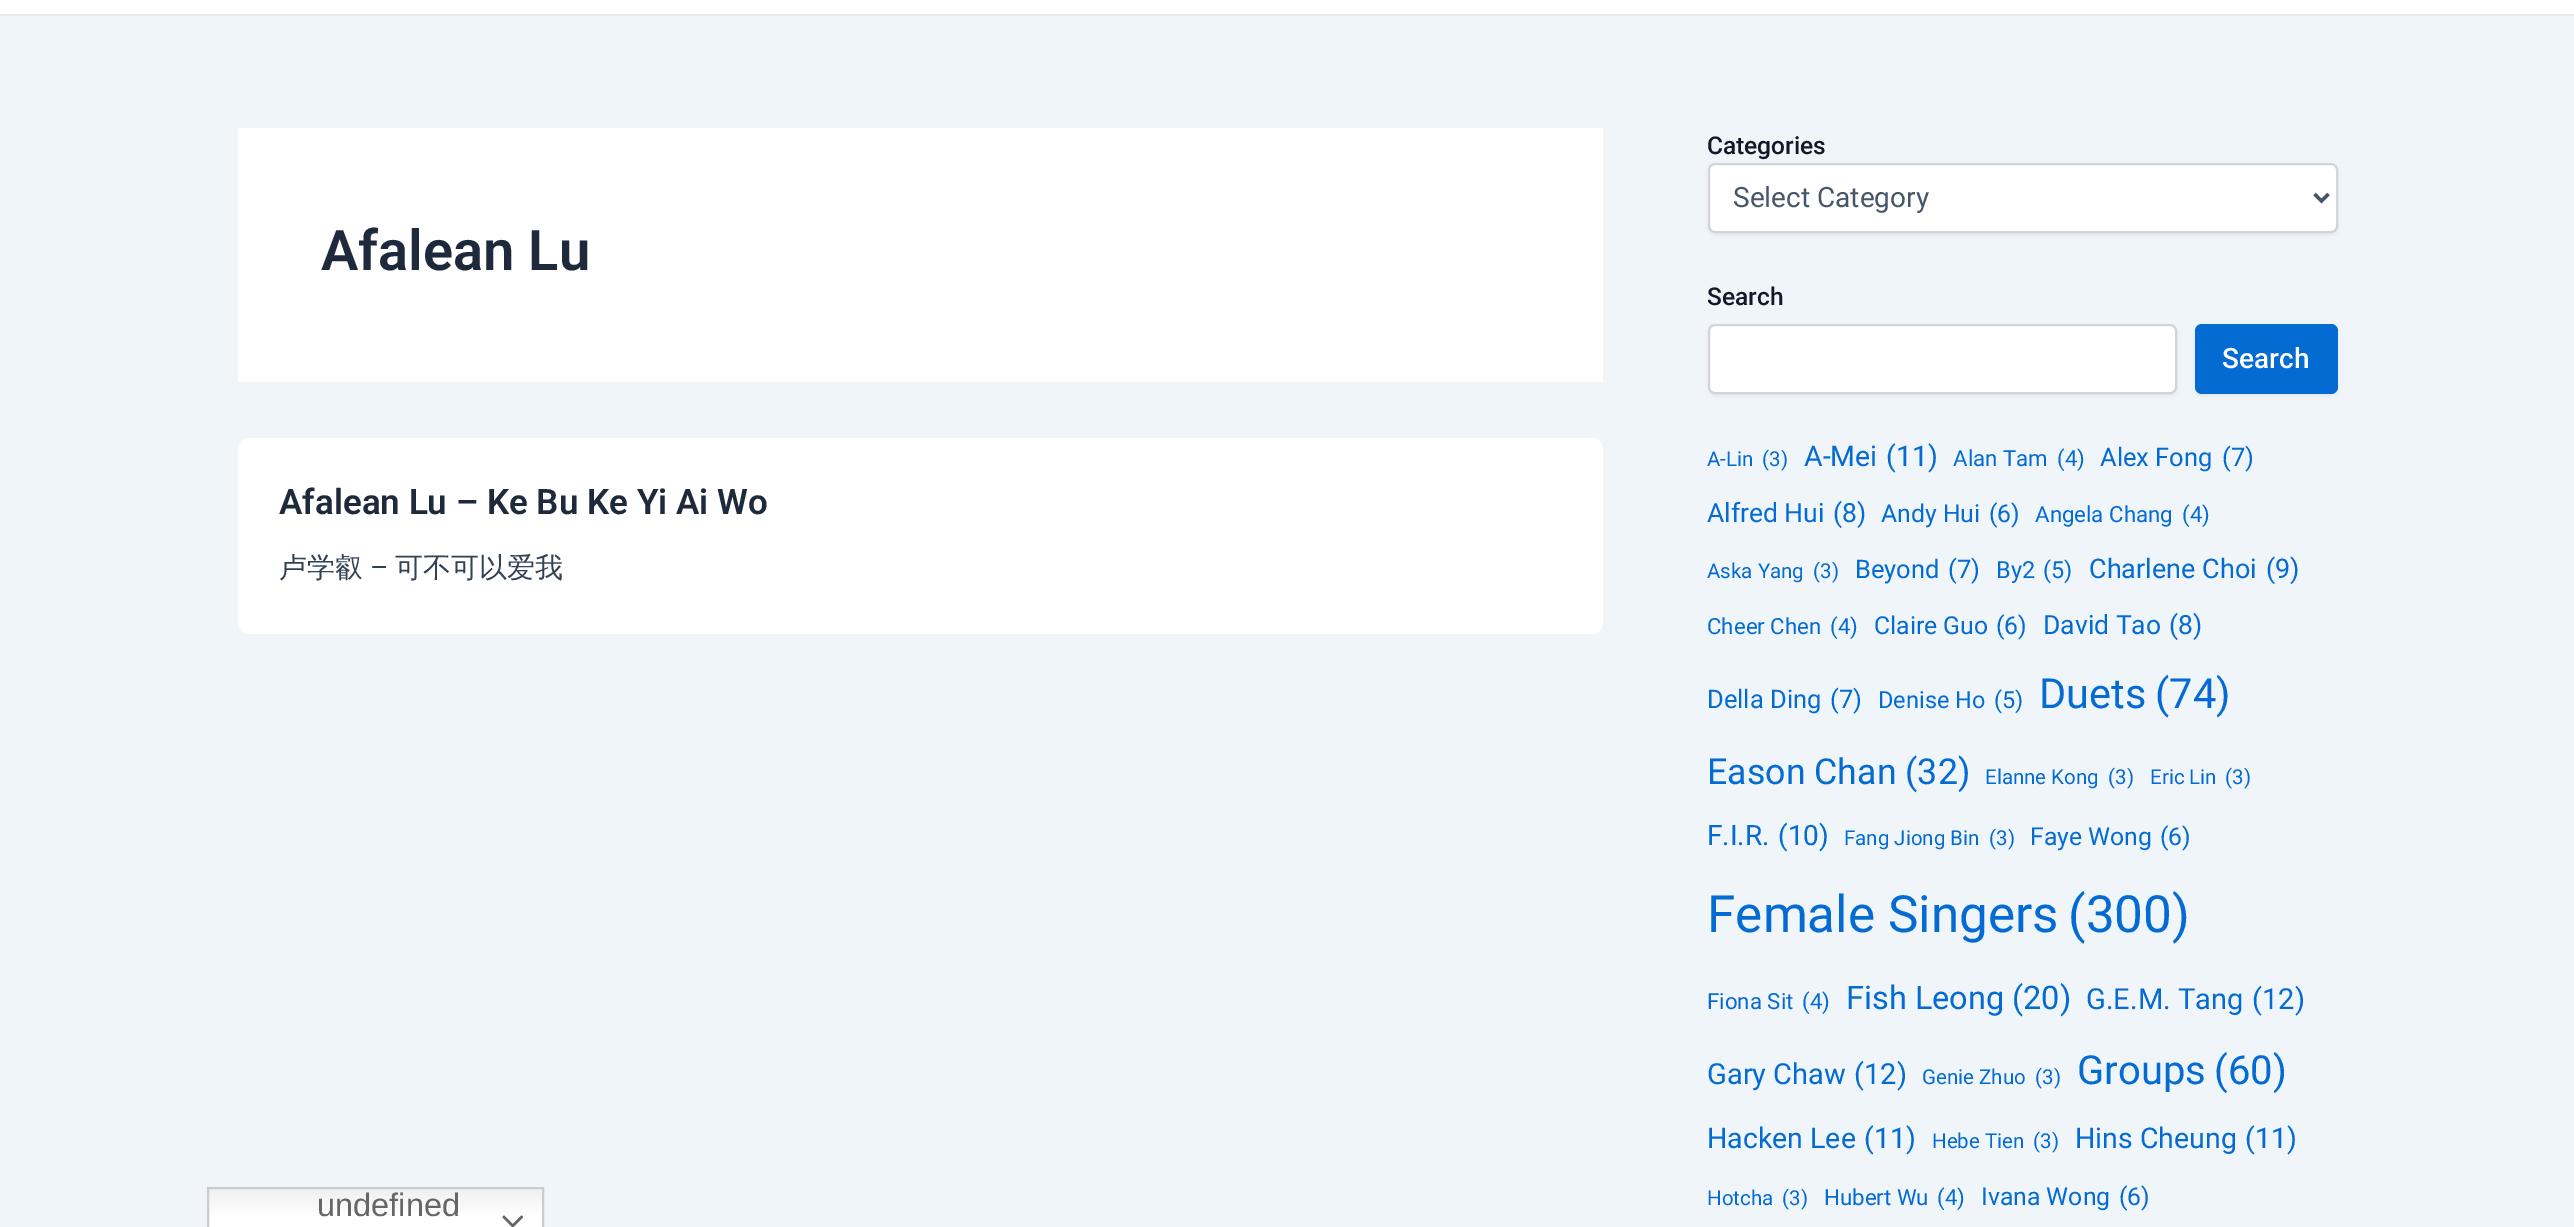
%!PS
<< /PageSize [2574 1227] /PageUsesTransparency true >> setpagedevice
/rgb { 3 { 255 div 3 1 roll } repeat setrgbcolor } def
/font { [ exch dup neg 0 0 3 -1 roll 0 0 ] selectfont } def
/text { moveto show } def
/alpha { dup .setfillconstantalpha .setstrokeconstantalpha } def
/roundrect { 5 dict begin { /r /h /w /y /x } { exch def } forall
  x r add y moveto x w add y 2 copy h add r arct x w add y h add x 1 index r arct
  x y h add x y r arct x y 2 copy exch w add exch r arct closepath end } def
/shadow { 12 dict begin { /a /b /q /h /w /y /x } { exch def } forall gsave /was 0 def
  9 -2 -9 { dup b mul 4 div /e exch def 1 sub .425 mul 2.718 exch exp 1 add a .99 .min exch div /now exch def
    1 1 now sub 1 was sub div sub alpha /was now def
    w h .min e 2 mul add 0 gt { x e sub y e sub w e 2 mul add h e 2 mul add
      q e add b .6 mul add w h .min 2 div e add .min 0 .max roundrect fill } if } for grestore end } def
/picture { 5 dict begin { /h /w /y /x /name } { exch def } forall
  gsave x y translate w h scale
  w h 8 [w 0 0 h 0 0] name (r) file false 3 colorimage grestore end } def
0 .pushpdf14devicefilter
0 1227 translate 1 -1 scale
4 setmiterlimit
240 245 250 rgb
0 0 2574 1227 rectfill
255 255 255 rgb
0 0 2574 14 rectfill
234 234 234 rgb
0 14 2574 2 rectfill
0 0 0 rgb
1708 165 630 70 7 2 0.05 shadow
255 255 255 rgb
1709 164 628 68 6 roundrect gsave fill grestore
209 213 219 rgb
2 setlinewidth
stroke
71 85 105 rgb
3.5 setlinewidth
2314.5 194 moveto 7 7 rlineto 7 -7 rlineto stroke
0 0 0 rgb
1708 326 469 70 7 2 0.05 shadow
255 255 255 rgb
1709 325 467 68 6 roundrect gsave fill grestore
209 213 219 rgb
2 setlinewidth
stroke
0 0 0 rgb
2195 326 143 70 7 2 0.05 shadow
4 107 210 rgb
2195 324 143 70 7 roundrect fill
gsave 209 1189 moveto 333 0 rlineto 0 38 rlineto -333 0 rlineto closepath clip newpath
<< /ShadingType 2 /ColorSpace /DeviceRGB /Coords [375 1187 375 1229] /Extend [true true] /Function << /FunctionType 3 /Domain [0 1] /Functions [<< /FunctionType 2 /Domain [0 1] /C0 [0.937 0.937 0.937] /C1 [1 1 1] /N 1 >> << /FunctionType 2 /Domain [0 1] /C0 [1 1 1] /C1 [1 1 1] /N 1 >>] /Bounds [0.7] /Encode [0 1 0 1] >> >> shfill grestore
204 204 204 rgb
208 1188 335 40 rectstroke
(img_01.rgb) 502 1215 21 12 picture
255 255 255 rgb
238 128 1365 254 rectfill
238 438 1365 196 11 roundrect fill
/Roboto-Medium 24.5 font
17 24 39 rgb
(Categories) 1707 154 text
/Roboto-Regular 28 font
71 85 105 rgb
(Select Category) 1733 207 text
/Roboto-Medium 24.5 font
17 24 39 rgb
(Search) 1707 305 text
/Roboto-Medium 28 font
255 255 255 rgb
(Search) 2222 368 text
/LiberationSans-Regular 32.5 font
102 102 102 rgb
(undefined) 317 1216 text
/Roboto-Regular 20.5 font
4 107 210 rgb
(A-Lin) 1707 466 text
(\(3\)) 1762 466 text
/Roboto-Regular 28.5 font
(A-Mei) 1804 466 text
(\(11\)) 1886 466 text
/Roboto-Regular 22.25 font
(Alan Tam) 1953 466 text
(\(4\)) 2057 466 text
/Roboto-Regular 25.5 font
(Alex Fong) 2100 466 text
(\(7\)) 2222 466 text
/Roboto-Regular 26.5 font
(Alfred Hui) 1707 522 text
(\(8\)) 1833 522 text
/Roboto-Regular 24.75 font
(Andy Hui) 1881 522 text
(\(6\)) 1989 522 text
/Roboto-Regular 22.25 font
(Angela Chang) 2035 522 text
(\(4\)) 2182 522 text
/Roboto-Regular 20.5 font
(Aska Yang) 1707 578 text
(\(3\)) 1813 578 text
/Roboto-Regular 25.5 font
(Beyond) 1855 578 text
(\(7\)) 1948 578 text
/Roboto-Regular 23.5 font
(By2) 1996 578 text
(\(5\)) 2043 578 text
/Roboto-Regular 27 font
(Charlene Choi) 2089 578 text
(\(9\)) 2266 578 text
/Roboto-Regular 22.25 font
(Cheer Chen) 1707 634 text
(\(4\)) 1830 634 text
/Roboto-Regular 24.75 font
(Claire Guo) 1874 634 text
(\(6\)) 1996 634 text
/Roboto-Regular 26.5 font
(David Tao) 2043 634 text
(\(8\)) 2169 634 text
/Roboto-Regular 25.5 font
(Della Ding) 1707 708 text
(\(7\)) 1830 708 text
/Roboto-Regular 23.5 font
(Denise Ho) 1878 708 text
(\(5\)) 1994 708 text
/Roboto-Regular 41.5 font
(Duets) 2039 708 text
(\(74\)) 2155 708 text
/Roboto-Regular 35.75 font
(Eason Chan \(32\)) 1707 784 text
/Roboto-Regular 20.5 font
(Elanne Kong) 1985 784 text
(\(3\)) 2108 784 text
(Eric Lin) 2150 784 text
(\(3\)) 2225 784 text
/Roboto-Regular 28 font
(F.I.R.) 1707 845 text
(\(10\)) 1778 845 text
/Roboto-Regular 20.5 font
(Fang Jiong Bin) 1844 845 text
(\(3\)) 1989 845 text
/Roboto-Regular 24.75 font
(Faye Wong) 2030 845 text
(\(6\)) 2160 845 text
/Roboto-Regular 51.25 font
(Female Singers) 1707 932 text
(\(300\)) 2068 932 text
/Roboto-Regular 22.25 font
(Fiona Sit) 1707 1009 text
(\(4\)) 1802 1009 text
/Roboto-Regular 32.5 font
(Fish Leong) 1846 1009 text
(\(20\)) 2012 1009 text
/Roboto-Regular 29 font
(G.E.M. Tang) 2086 1009 text
(\(12\)) 2252 1009 text
(Gary Chaw) 1707 1084 text
(\(12\)) 1854 1084 text
/Roboto-Regular 20.5 font
(Genie Zhuo) 1922 1084 text
(\(3\)) 2035 1084 text
/Roboto-Regular 40 font
(Groups) 2077 1084 text
(\(60\)) 2214 1084 text
/Roboto-Regular 28.5 font
(Hacken Lee) 1707 1148 text
(\(11\)) 1864 1148 text
/Roboto-Regular 20.5 font
(Hebe Tien) 1932 1148 text
(\(3\)) 2033 1148 text
/Roboto-Regular 28.5 font
(Hins Cheung) 2075 1148 text
(\(11\)) 2245 1148 text
/Roboto-Regular 20.5 font
(Hotcha) 1707 1205 text
(\(3\)) 1782 1205 text
/Roboto-Regular 22.25 font
(Hubert Wu) 1824 1205 text
(\(4\)) 1937 1205 text
/Roboto-Regular 24.75 font
(Ivana Wong) 1981 1205 text
(\(6\)) 2119 1205 text
/Roboto-SemiBold 56 font
30 41 59 rgb
(Afalean Lu) 321 270 text
/Roboto-SemiBold 35 font
(Afalean Lu – Ke Bu Ke Yi Ai Wo) 279 514 text
/WenQuanYiZenHei-Medium 28 font
51 65 85 rgb
(卢学叡) 279 577 text
/Roboto-Regular 28 font
(–) 370 577 text
/WenQuanYiZenHei-Medium 28 font
(可不可以爱我) 395 577 text
.poppdf14devicefilter showpage
